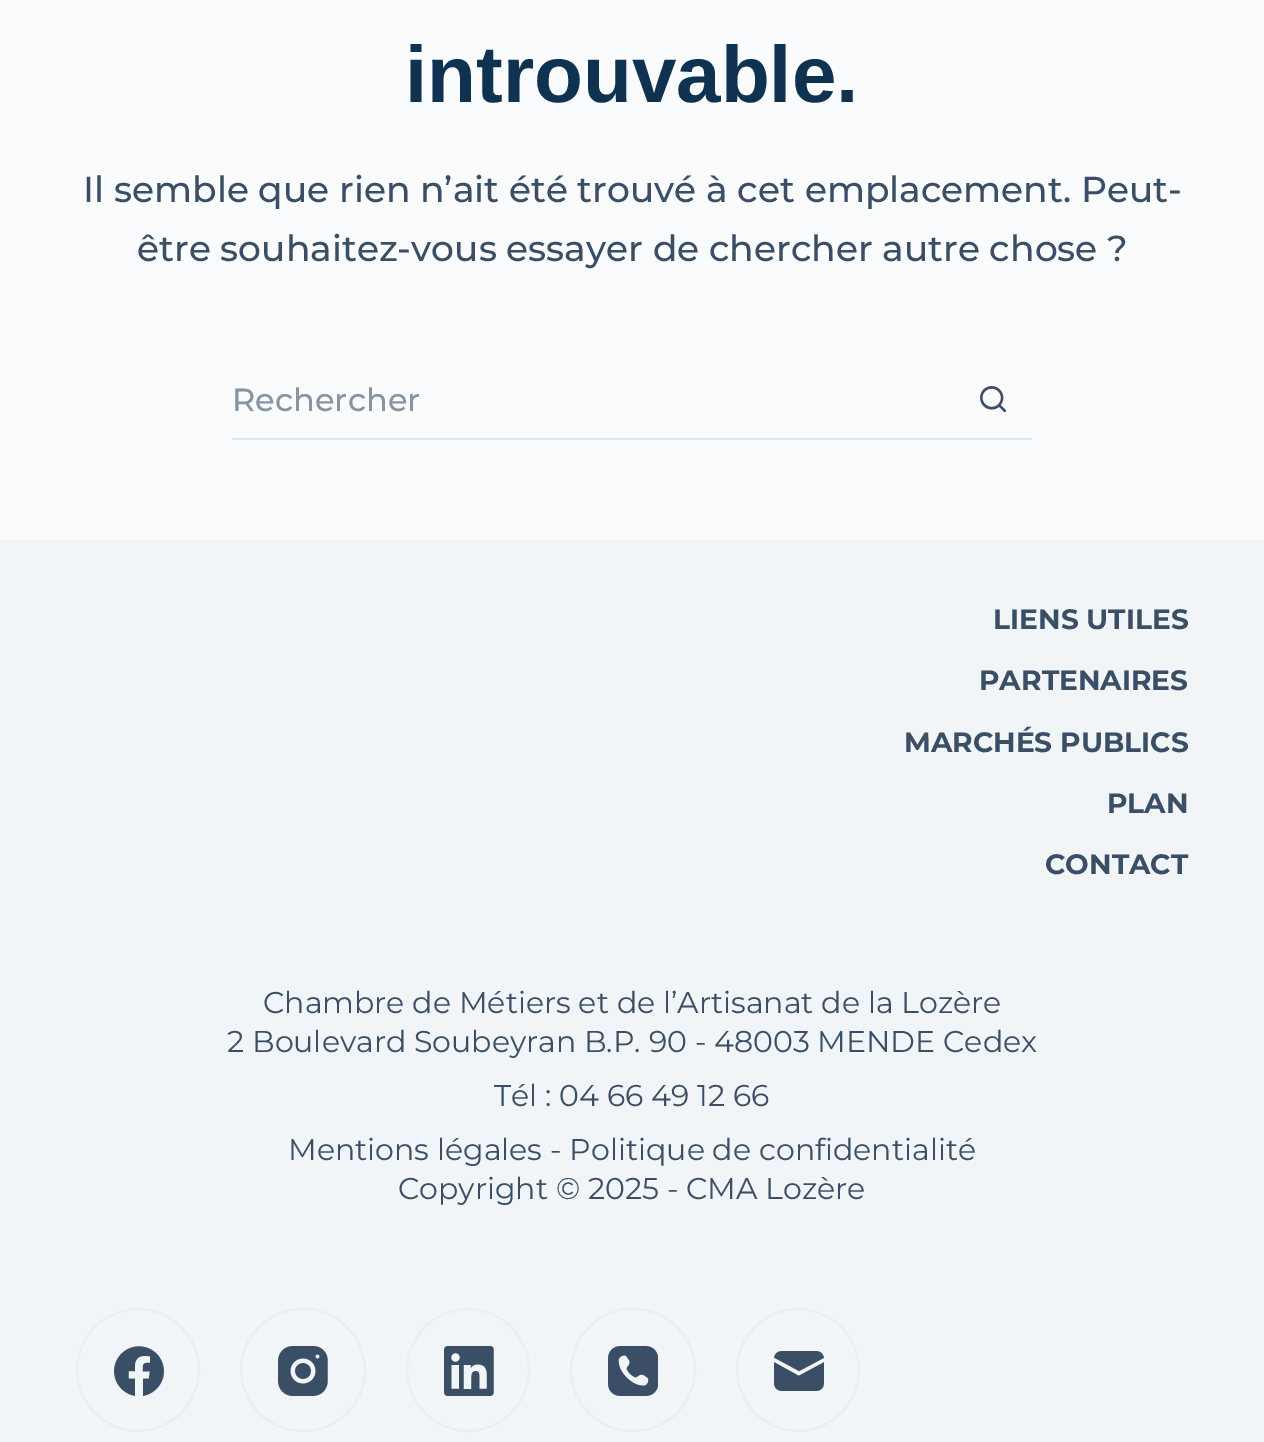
%!PS
<< /PageSize [1264 1442] >> setpagedevice
/rgb { 3 { 255 div 3 1 roll } repeat setrgbcolor } def
/font { [ exch dup neg 0 0 3 -1 roll 0 0 ] selectfont } def
/text { moveto show } def
/circle { newpath 0 360 arc closepath } def
/roundrect { 5 dict begin { /r /h /w /y /x } { exch def } forall
  x r add y moveto x w add y 2 copy h add r arct x w add y h add x 1 index r arct
  x y h add x y r arct x y 2 copy exch w add exch r arct closepath end } def
/picture { 5 dict begin { /h /w /y /x /name } { exch def } forall
  gsave x y translate w h scale
  w h 8 [w 0 0 h 0 0] name (r) file false 3 colorimage grestore end } def
0 1442 translate 1 -1 scale
4 setmiterlimit
250 251 252 rgb
0 0 1264 1442 rectfill
225 232 237 rgb
232 438 800 2 rectfill
(img_01.rgb) 980 386 26 26 picture
242 245 247 rgb
0 540 1264 902 rectfill
235 238 241 rgb
2 setlinewidth
138 1370 61 circle stroke
(img_02.rgb) 114 1346 50 50 picture
241 1309 124 122 61 roundrect stroke
(img_03.rgb) 278 1346 50 50 picture
468 1370 61 circle stroke
(img_04.rgb) 444 1346 50 50 picture
571 1309 124 122 61 roundrect stroke
(img_05.rgb) 608 1346 50 50 picture
798 1370 61 circle stroke
(img_06.rgb) 774 1351 50 40 picture
/LiberationSans-Bold 80 font
15 50 80 rgb
(introuvable.) 405 102 text
/Montserrat-Medium 36 font
58 79 102 rgb
(Il semble que rien n’ait été trouvé à cet emplacement. Peut-) 83 202 text
(être souhaitez-vous essayer de chercher autre chose ?) 137 261 text
/Montserrat-Medium 32 font
135 148 162 rgb
(Rechercher) 232 411 text
/Montserrat-Bold 28 font
58 79 102 rgb
(LIENS UTILES) 993 629 text
(PARTENAIRES) 979 690 text
(MARCHÉS PUBLICS) 904 752 text
(PLAN) 1107 813 text
(CONTACT) 1045 874 text
/Montserrat-Regular 30 font
(Chambre de Métiers et de l’Artisanat de la Lozère) 263 1013 text
(2 Boulevard Soubeyran B.P. 90 - 48003 MENDE Cedex) 227 1052 text
(Tél : 04 66 49 12 66) 494 1106 text
(Mentions légales - Politique de confidentialité) 288 1160 text
(Copyright © 2025 - CMA Lozère) 398 1199 text
showpage
